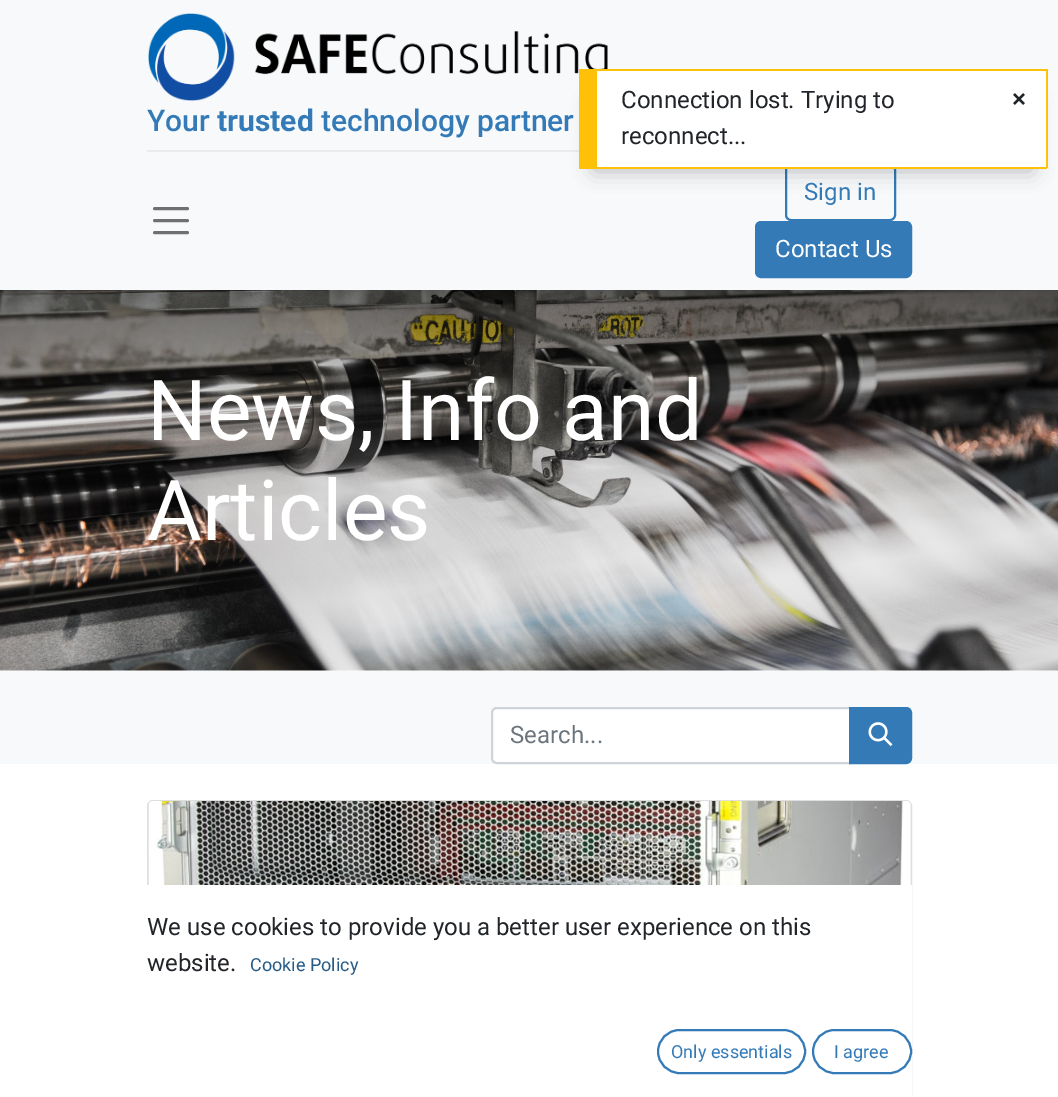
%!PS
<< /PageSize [1058 1097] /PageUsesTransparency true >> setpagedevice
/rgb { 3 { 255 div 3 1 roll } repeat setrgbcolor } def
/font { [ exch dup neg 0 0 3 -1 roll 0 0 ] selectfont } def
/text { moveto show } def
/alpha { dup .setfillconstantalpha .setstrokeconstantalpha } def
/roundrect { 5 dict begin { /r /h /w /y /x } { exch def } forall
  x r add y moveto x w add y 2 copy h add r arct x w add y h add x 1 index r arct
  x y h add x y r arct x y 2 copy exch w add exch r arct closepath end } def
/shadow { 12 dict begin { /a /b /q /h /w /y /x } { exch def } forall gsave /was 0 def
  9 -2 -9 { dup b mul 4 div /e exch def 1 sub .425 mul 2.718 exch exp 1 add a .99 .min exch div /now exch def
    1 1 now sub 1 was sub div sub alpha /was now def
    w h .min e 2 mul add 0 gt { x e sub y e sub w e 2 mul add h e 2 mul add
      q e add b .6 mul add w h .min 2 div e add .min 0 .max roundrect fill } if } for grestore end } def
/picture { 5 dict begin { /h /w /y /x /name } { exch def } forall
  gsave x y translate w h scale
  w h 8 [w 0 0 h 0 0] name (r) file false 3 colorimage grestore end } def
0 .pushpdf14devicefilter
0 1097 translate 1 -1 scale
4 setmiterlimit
255 255 255 rgb
0 0 1058 1097 rectfill
(img_02.rgb) 0 290 1058 381 picture
0 0 0 rgb
0 3 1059 290 0 3 0.07 shadow
248 249 250 rgb
0 0 1058 290 rectfill
(img_01.rgb) 148 13 460 88 picture
233 236 239 rgb
147 150 432 2 rectfill
51 122 183 rgb
2 setlinewidth
786 165 109 55 5 roundrect stroke
0 0 0 rgb
594 102 438 69 0 10.5 0.25 shadow
255 255 255 rgb
597 71 449 96 rectfill
255 193 7 rgb
597 69 450 2 rectfill
1046 69 2 99 rectfill
579 167 468 2 rectfill
579 69 18 98 rectfill
112 112 113 rgb
3 setlinewidth
1 setlinecap
154.5 208.5 moveto 33 0 rlineto 154.5 220.5 moveto 33 0 rlineto 154.5 232.5 moveto 33 0 rlineto stroke
51 122 183 rgb
756 222 155 55 5 roundrect gsave fill grestore
2 setlinewidth
0 setlinecap
stroke
248 249 250 rgb
0 671 1058 93 rectfill
255 255 255 rgb
497 708 moveto 353 0 rlineto 0 55 rlineto -353 0 rlineto -3 0 -5 -2 -5 -5 rcurveto 0 -45 rlineto 0 -3 2 -5 5 -5 rcurveto closepath gsave fill grestore
206 212 218 rgb
stroke
51 122 183 rgb
850 708 moveto 56 0 rlineto 3 0 5 2 5 5 rcurveto 0 45 rlineto 0 3 -2 5 -5 5 rcurveto -56 0 rlineto closepath gsave fill grestore
stroke
(img_03.rgb) 868 722 25 25 picture
223 223 223 rgb
148 801 763 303 5 roundrect stroke
233 236 239 rgb
154 801 moveto 752 0 rlineto 3 0 5 2 5 5 rcurveto 0 247 rlineto -762 0 rlineto 0 -247 rlineto 0 -3 2 -5 5 -5 rcurveto closepath fill
0.3 alpha
255 255 255 rgb
154 801 moveto -3 0 -5 2 -5 5 rcurveto 0 247 rlineto 762 0 rlineto 0 -247 rlineto 0 -3 -2 -5 -5 -5 rcurveto closepath 151 803 moveto 0 248 rlineto 758 0 rlineto 0 -248 rlineto closepath eofill
1 alpha
(img_04.rgb) 148 801 762 84 picture
147 885 765 212 rectfill
51 122 183 rgb
658 1030 147 43 21.5 roundrect stroke
813 1030 98 43 21.5 roundrect stroke
/Roboto-Regular 24 font
33 37 41 rgb
(Connection lost. Trying to) 621 108 text
(reconnect...) 621 144 text
/LiberationSans-Bold 24 font
(×) 1012 107 text
/Roboto-Medium 30 font
51 122 183 rgb
(Your) 147 131 text
/Roboto-Bold 30 font
(trusted) 217 131 text
/Roboto-Medium 30 font
(technology partner) 321 131 text
/Roboto-Regular 24 font
(Sign in) 804 200 text
255 255 255 rgb
(Contact Us) 775 257 text
/Roboto-Regular 84 font
(News, Info and) 147 440 text
(Articles) 147 540 text
/Roboto-Regular 24 font
108 117 125 rgb
(Search...) 510 743 text
33 37 41 rgb
(We use cookies to provide you a better user experience on this) 147 935 text
(website.) 147 971 text
/Roboto-Regular 18 font
38 90 135 rgb
(Cookie Policy) 250 971 text
51 122 183 rgb
(Only essentials) 671 1058 text
(I agree) 834 1058 text
.poppdf14devicefilter showpage
